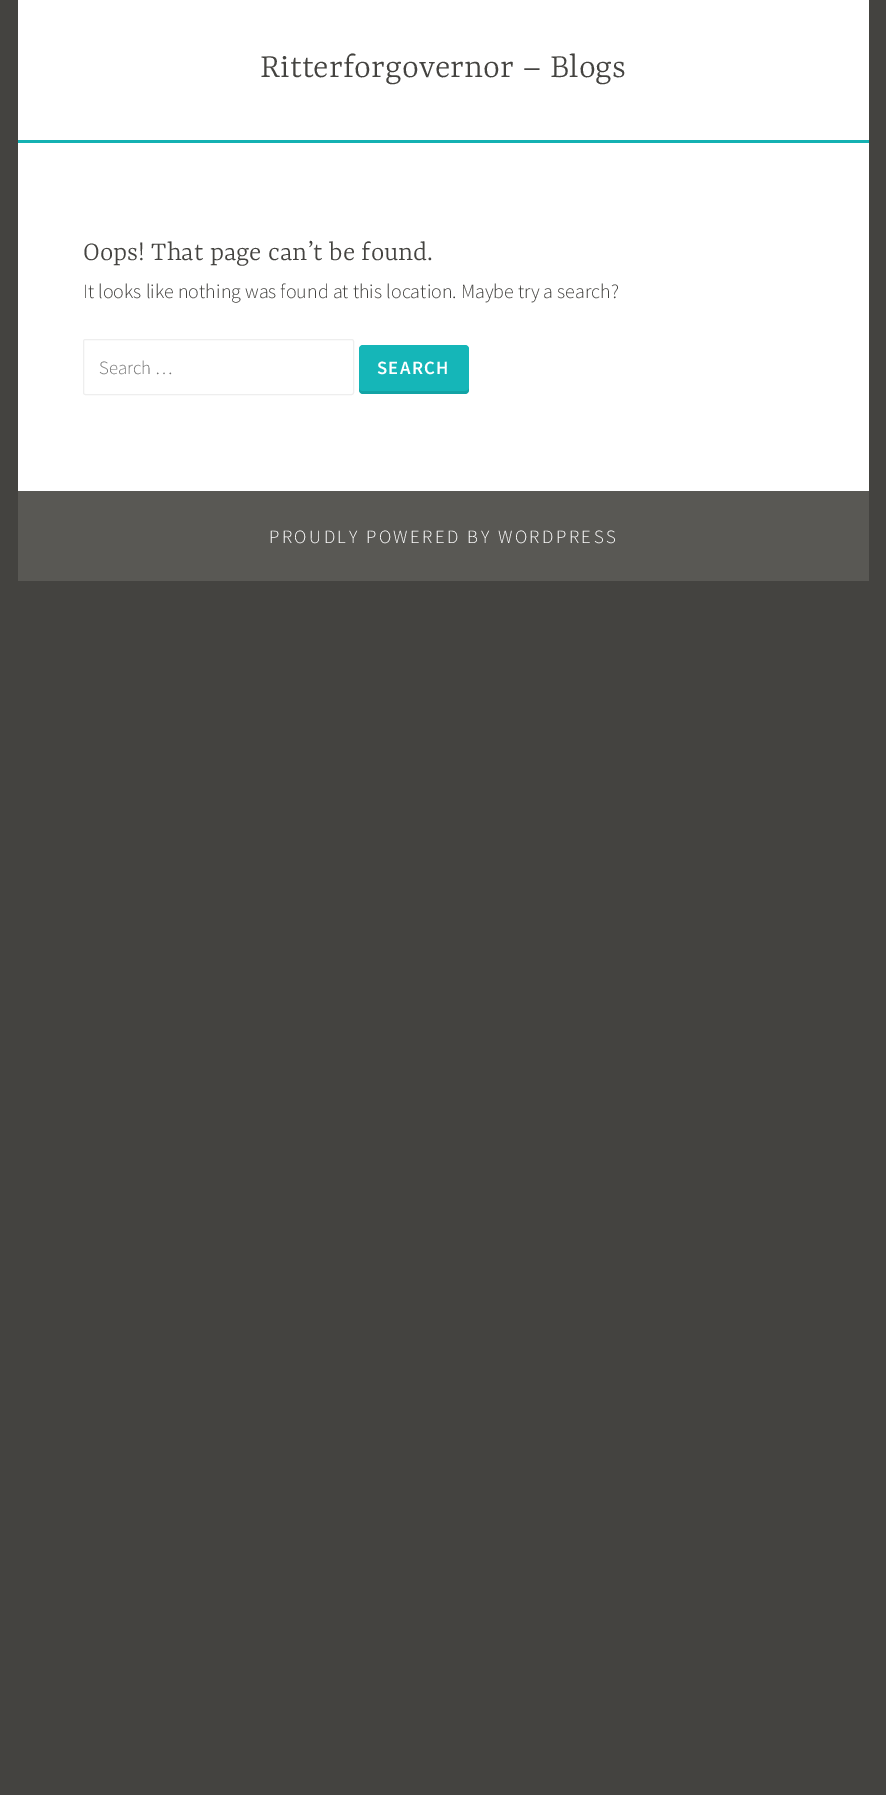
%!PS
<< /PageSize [886 1795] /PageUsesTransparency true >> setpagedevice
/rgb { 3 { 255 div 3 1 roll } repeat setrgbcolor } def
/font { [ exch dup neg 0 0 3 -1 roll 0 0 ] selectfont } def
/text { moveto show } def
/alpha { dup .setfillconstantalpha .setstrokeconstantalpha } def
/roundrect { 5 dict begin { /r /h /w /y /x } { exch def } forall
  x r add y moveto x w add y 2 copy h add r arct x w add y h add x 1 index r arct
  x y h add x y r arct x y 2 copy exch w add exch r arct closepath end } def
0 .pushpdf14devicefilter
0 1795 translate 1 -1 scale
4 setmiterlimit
68 67 64 rgb
0 0 886 1795 rectfill
255 255 255 rgb
18 0 851 140 rectfill
20 177 178 rgb
18 140 851 3 rectfill
255 255 255 rgb
18 143 851 348 rectfill
238 238 238 rgb
83.5 339.5 270 55 2 roundrect stroke
21 182 184 rgb
359 345 110 49 4 roundrect fill
0.1 alpha
0 0 0 rgb
359 388 moveto 0 2 rlineto 0 2 2 4 4 4 rcurveto 102 0 rlineto 2 0 4 -2 4 -4 rcurveto 0 -2 rlineto 0 2 -2 3 -4 3 rcurveto -103 0 rlineto -2 0 -3 -1 -3 -3 rcurveto closepath fill
1 alpha
89 88 84 rgb
18 491 851 90 rectfill
/Yrsa-Light 36.25 font
68 67 64 rgb
(Ritterforgovernor – Blogs) 260 77 text
/Yrsa-Light 28.75 font
(Oops! That page can’t be found.) 83 260 text
/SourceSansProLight-Light 20 font
(It looks like nothing was found at this location. Maybe try a search?) 83 298 text
/SourceSansProLight-Light 18.75 font
117 117 117 rgb
(Search …) 99 374 text
/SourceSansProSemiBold-SemiBold 18.75 font
255 255 255 rgb
377 374 moveto 1.25 0 (SEARCH) ashow
/SourceSansProLight-Light 18.75 font
269 543 moveto 2.5 0 (PROUDLY POWERED BY WORDPRESS) ashow
.poppdf14devicefilter showpage
